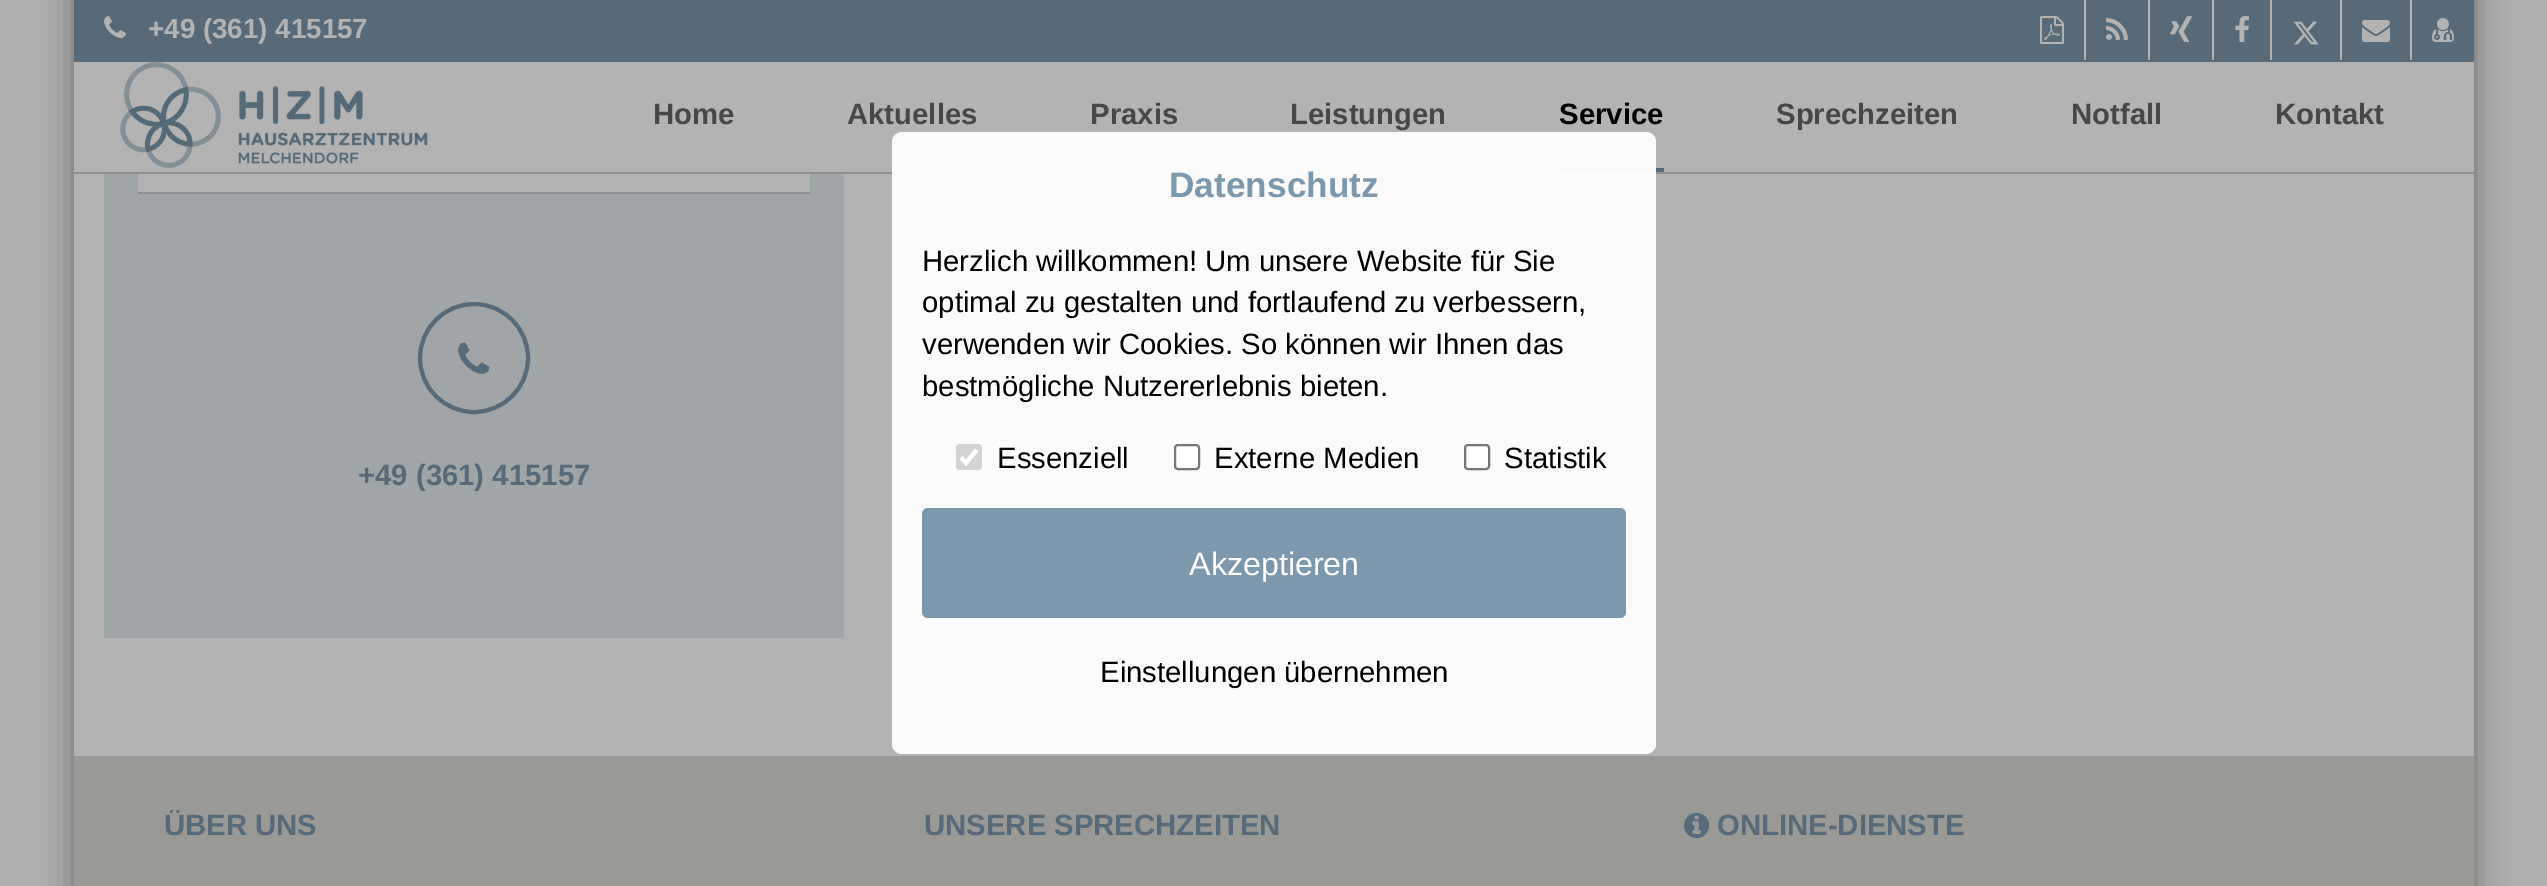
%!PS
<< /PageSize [2547 886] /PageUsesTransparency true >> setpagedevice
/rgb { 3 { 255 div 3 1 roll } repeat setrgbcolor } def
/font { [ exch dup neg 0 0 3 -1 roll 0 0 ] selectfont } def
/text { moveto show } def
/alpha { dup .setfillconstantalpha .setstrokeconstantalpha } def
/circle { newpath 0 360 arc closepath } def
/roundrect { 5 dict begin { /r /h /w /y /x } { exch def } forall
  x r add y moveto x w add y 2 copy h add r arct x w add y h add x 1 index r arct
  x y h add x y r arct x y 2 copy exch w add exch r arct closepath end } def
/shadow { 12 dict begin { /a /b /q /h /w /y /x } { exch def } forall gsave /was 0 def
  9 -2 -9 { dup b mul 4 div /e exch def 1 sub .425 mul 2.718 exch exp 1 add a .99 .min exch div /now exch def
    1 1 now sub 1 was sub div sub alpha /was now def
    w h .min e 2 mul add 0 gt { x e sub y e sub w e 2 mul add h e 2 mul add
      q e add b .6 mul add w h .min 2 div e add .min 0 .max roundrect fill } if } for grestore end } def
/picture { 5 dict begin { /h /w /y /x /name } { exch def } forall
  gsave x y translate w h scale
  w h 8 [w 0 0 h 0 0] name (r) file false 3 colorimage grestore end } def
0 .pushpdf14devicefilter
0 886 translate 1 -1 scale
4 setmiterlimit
174 174 174 rgb
0 0 2547 886 rectfill
0 0 0 rgb
74 -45 2400 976 0 15 0.37 shadow
179 179 179 rgb
74 174 2400 582 rectfill
74 62 2400 110 rectfill
143 143 143 rgb
74 172 2400 2 rectfill
86 106 121 rgb
74 0 2400 62 rectfill
(img_01.rgb) 104 16 22 22 picture
179 179 179 rgb
2084 0 2 60 rectfill
(img_02.rgb) 2040 16 24 28 picture
2148 0 2 60 rectfill
(img_03.rgb) 2106 18 22 22 picture
2212 0 2 60 rectfill
(img_04.rgb) 2170 16 22 26 picture
2270 0 2 60 rectfill
(img_05.rgb) 2235 16 14 26 picture
2340 0 2 60 rectfill
(img_06.rgb) 2293 21 26 24 picture
2410 0 2 60 rectfill
(img_07.rgb) 2362 20 28 22 picture
(img_08.rgb) 2432 18 22 24 picture
(img_09.rgb) 120 62 308 106 picture
86 106 121 rgb
1560 168 104 4 rectfill
160 165 167 rgb
104 174 740 464 rectfill
179 179 179 rgb
138 174 672 18 rectfill
143 143 143 rgb
138 192 672 2 rectfill
86 106 121 rgb
4 setlinewidth
474 358 54 circle stroke
(img_10.rgb) 458 342 32 32 picture
153 153 149 rgb
74 756 2400 130 rectfill
(img_11.rgb) 1684 813 26 26 picture
0.95 alpha
255 255 255 rgb
892 132 764 622 10 roundrect fill
1 alpha
211 211 211 rgb
956 444 26 26 4 roundrect fill
255 255 255 rgb
4.2 setlinewidth
961 457.5 moveto 5 5.5 rlineto 10.5 -13 rlineto stroke
1175 445 24 24 3 roundrect gsave fill grestore
118 118 118 rgb
2 setlinewidth
stroke
255 255 255 rgb
1465 445 24 24 3 roundrect gsave fill grestore
118 118 118 rgb
stroke
123 152 173 rgb
922 508 704 110 6 roundrect fill
/LiberationSans-Bold 27.75 font
179 179 179 rgb
(+49 \(361\) 415157) 148 38 text
/LiberationSans-Bold 29.3 font
71 71 71 rgb
(Home) 653 124 text
(Aktuelles) 847 124 text
(Praxis) 1090 124 text
(Leistungen) 1290 124 text
0 0 0 rgb
(Service) 1559 124 text
71 71 71 rgb
(Sprechzeiten) 1776 124 text
(Notfall) 2071 124 text
(Kontakt) 2275 124 text
86 106 121 rgb
(+49 \(361\) 415157) 358 485 text
(ÜBER UNS) 164 835 text
(UNSERE SPRECHZEITEN) 924 835 text
(ONLINE-DIENSTE) 1717 835 text
/LiberationSans-Bold 35.25 font
123 152 173 rgb
(Datenschutz) 1169 197 text
/LiberationSans-Regular 29.3 font
0 0 0 rgb
(Herzlich willkommen! Um unsere Website für Sie) 922 271 text
(optimal zu gestalten und fortlaufend zu verbessern,) 922 312 text
(verwenden wir Cookies. So können wir Ihnen das) 922 354 text
(bestmögliche Nutzererlebnis bieten.) 922 396 text
(Essenziell) 997 468 text
(Externe Medien) 1214 468 text
(Statistik) 1504 468 text
/LiberationSans-Regular 32.25 font
255 255 255 rgb
(Akzeptieren) 1189 575 text
/LiberationSans-Regular 29.3 font
0 0 0 rgb
(Einstellungen übernehmen) 1100 682 text
.poppdf14devicefilter showpage
